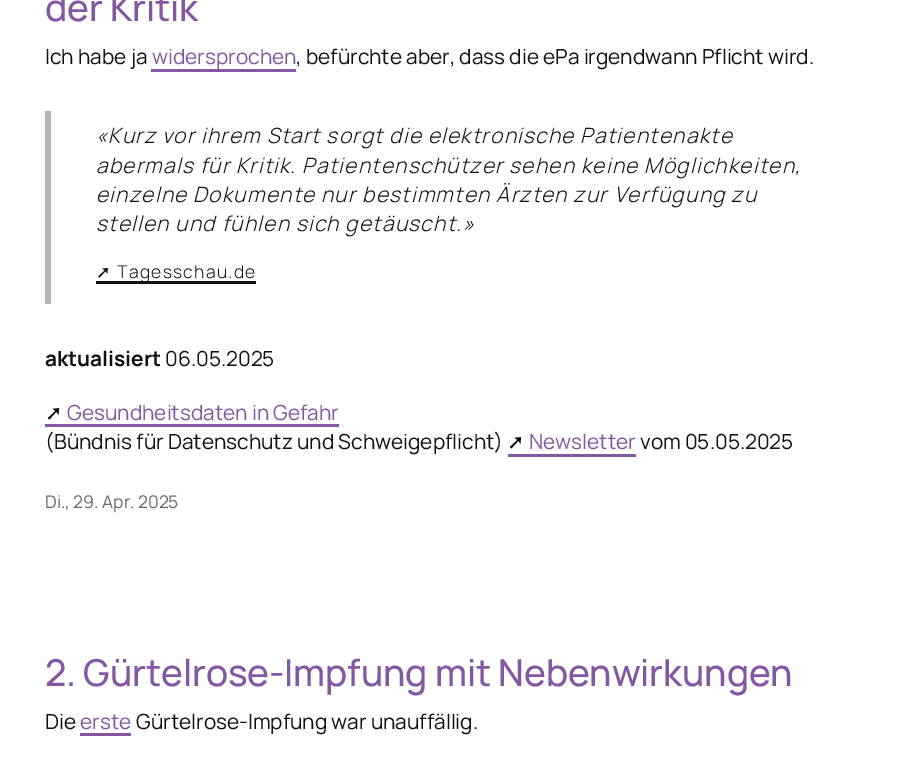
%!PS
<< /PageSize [902 769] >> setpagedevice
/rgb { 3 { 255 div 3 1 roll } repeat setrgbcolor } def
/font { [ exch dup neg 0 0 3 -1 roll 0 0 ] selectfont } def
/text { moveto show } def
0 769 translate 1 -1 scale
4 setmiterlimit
255 255 255 rgb
0 0 902 769 rectfill
131 87 162 rgb
151 69 145 3 rectfill
181 181 181 rgb
45 111 6 193 rectfill
17 17 17 rgb
96 281 160 3 rectfill
131 87 162 rgb
45 424 294 3 rectfill
508 454 128 3 rectfill
80 733 51 3 rectfill
/Manrope-Medium 37 font
45 21 moveto -0.1 0 (der Kritik) ashow
/Manrope-Regular 20.85 font
17 17 17 rgb
(Ich habe ja) 45 64 text
131 87 162 rgb
(widersprochen) 152 64 text
17 17 17 rgb
(, befürchte aber, dass die ePa irgendwann Pflicht wird.) 296 64 text
/Manrope-LightItalic 21 font
96 143 moveto 1.3 0 («Kurz vor ihrem Start sorgt die elektronische Patientenakte) ashow
96 173 moveto 1.3 0 (abermals für Kritik. Patientenschützer sehen keine Möglichkeiten,) ashow
96 202 moveto 1.3 0 (einzelne Dokumente nur bestimmten Ärzten zur Verfügung zu) ashow
96 231 moveto 1.3 0 (stellen und fühlen sich getäuscht.») ashow
/DejaVuSans-Regular 17.5 font
0 0 0 rgb
96 278 moveto 1.3 0 (➚) ashow
/Manrope-Light 17.5 font
17 17 17 rgb
117 278 moveto 1.3 0 (Tagesschau.de) ashow
/Manrope-Bold 20.85 font
(aktualisiert) 45 366 text
/Manrope-Regular 20.85 font
(06.05.2025) 165 366 text
/DejaVuSans-Regular 20.85 font
0 0 0 rgb
(➚) 45 420 text
/Manrope-Regular 20.85 font
131 87 162 rgb
(Gesundheitsdaten in Gefahr) 67 420 text
17 17 17 rgb
(\(Bündnis für Datenschutz und Schweigepflicht\)) 45 449 text
/DejaVuSans-Regular 20.85 font
0 0 0 rgb
(➚) 507 449 text
/Manrope-Regular 20.85 font
131 87 162 rgb
(Newsletter) 529 449 text
17 17 17 rgb
(vom 05.05.2025) 640 449 text
/Manrope-Regular 17.5 font
104 104 104 rgb
(Di., 29. Apr. 2025) 45 508 text
/Manrope-Medium 37 font
131 87 162 rgb
45 686 moveto -0.1 0 (2. Gürtelrose-Impfung mit Nebenwirkungen) ashow
/Manrope-Regular 20.85 font
17 17 17 rgb
(Die) 45 729 text
131 87 162 rgb
(erste) 80 729 text
17 17 17 rgb
(Gürtelrose-Impfung war unauffällig.) 136 729 text
showpage
